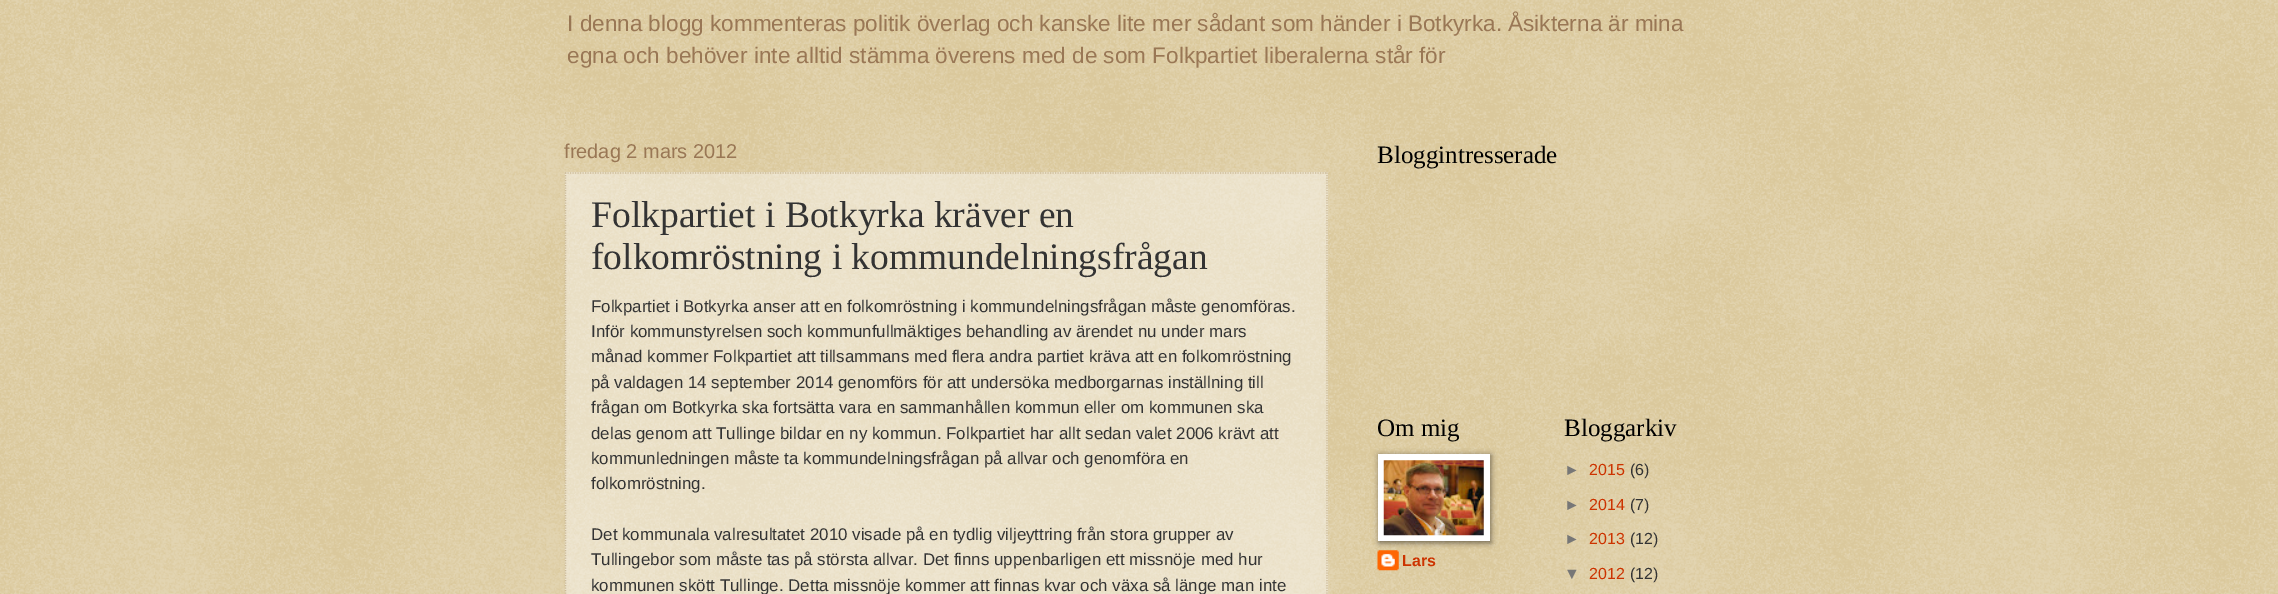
%!PS
<< /PageSize [2278 594] /PageUsesTransparency true >> setpagedevice
/rgb { 3 { 255 div 3 1 roll } repeat setrgbcolor } def
/font { [ exch dup neg 0 0 3 -1 roll 0 0 ] selectfont } def
/text { moveto show } def
/alpha { dup .setfillconstantalpha .setstrokeconstantalpha } def
/roundrect { 5 dict begin { /r /h /w /y /x } { exch def } forall
  x r add y moveto x w add y 2 copy h add r arct x w add y h add x 1 index r arct
  x y h add x y r arct x y 2 copy exch w add exch r arct closepath end } def
/shadow { 12 dict begin { /a /b /q /h /w /y /x } { exch def } forall gsave /was 0 def
  9 -2 -9 { dup b mul 4 div /e exch def 1 sub .425 mul 2.718 exch exp 1 add a .99 .min exch div /now exch def
    1 1 now sub 1 was sub div sub alpha /was now def
    w h .min e 2 mul add 0 gt { x e sub y e sub w e 2 mul add h e 2 mul add
      q e add b .6 mul add w h .min 2 div e add .min 0 .max roundrect fill } if } for grestore end } def
/picture { 5 dict begin { /h /w /y /x /name } { exch def } forall
  gsave x y translate w h scale
  w h 8 [w 0 0 h 0 0] name (r) file false 3 colorimage grestore end } def
0 .pushpdf14devicefilter
0 594 translate 1 -1 scale
4 setmiterlimit
192 161 84 rgb
0 0 2278 594 rectfill
(img_01.rgb) 0 0 2278 594 picture
0.4 alpha
255 255 255 rgb
565 172 763 422 rectfill
1 alpha
204 187 153 rgb
1.2 setlinewidth
[1.25 1.25] 0 setdash
565 173 moveto 762.5 0 rlineto stroke
1327 172.5 moveto 0 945 rlineto stroke
565.5 172.5 moveto 0 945 rlineto stroke
(img_03.rgb) 1377 550 22 21 picture
0 0 0 rgb
1379 455 112 88 0 3 0.5 shadow
255 255 255 rgb
1378 454 112 87 rectfill
(img_02.rgb) 1383 460 101 76 picture
/LiberationSans-Regular 22.55 font
153 119 85 rgb
(I denna blogg kommenteras politik överlag och kanske lite mer sådant som händer i Botkyrka. Åsikterna är mina) 567 31 text
(egna och behöver inte alltid stämma överens med de som Folkpartiet liberalerna står för) 567 63 text
/LiberationSans-Regular 20 font
(fredag 2 mars 2012) 564 158 text
/LiberationSerif-Regular 37.5 font
51 51 51 rgb
(Folkpartiet i Botkyrka kräver en) 591 227 text
(folkomröstning i kommundelningsfrågan) 591 269 text
/LiberationSans-Regular 16.9 font
(Folkpartiet i Botkyrka anser att en folkomröstning i kommundelningsfrågan måste genomföras.) 591 312 text
(Inför kommunstyrelsen soch kommunfullmäktiges behandling av ärendet nu under mars) 591 337 text
(månad kommer Folkpartiet att tillsammans med flera andra partiet kräva att en folkomröstning) 591 362 text
(på valdagen 14 september 2014 genomförs för att undersöka medborgarnas inställning till) 591 388 text
(frågan om Botkyrka ska fortsätta vara en sammanhållen kommun eller om kommunen ska) 591 413 text
(delas genom att Tullinge bildar en ny kommun. Folkpartiet har allt sedan valet 2006 krävt att) 591 439 text
(kommunledningen måste ta kommundelningsfrågan på allvar och genomföra en) 591 464 text
(folkomröstning.) 591 489 text
(Det kommunala valresultatet 2010 visade på en tydlig viljeyttring från stora grupper av) 591 540 text
(Tullingebor som måste tas på största allvar. Det finns uppenbarligen ett missnöje med hur) 591 565 text
(kommunen skött Tullinge. Detta missnöje kommer att finnas kvar och växa så länge man inte) 591 591 text
/LiberationSerif-Regular 25 font
0 0 0 rgb
(Bloggintresserade) 1377 163 text
(Om mig) 1377 436 text
/LiberationSans-Bold 16 font
204 51 0 rgb
(Lars) 1402 566 text
/LiberationSerif-Regular 25 font
0 0 0 rgb
(Bloggarkiv) 1564 436 text
/LiberationSans-Regular 16 font
119 119 119 rgb
(►) 1564 475 text
204 51 0 rgb
(2015) 1589 475 text
51 51 51 rgb
(\(6\)) 1630 475 text
119 119 119 rgb
(►) 1564 510 text
204 51 0 rgb
(2014) 1589 510 text
51 51 51 rgb
(\(7\)) 1630 510 text
119 119 119 rgb
(►) 1564 544 text
204 51 0 rgb
(2013) 1589 544 text
51 51 51 rgb
(\(12\)) 1630 544 text
119 119 119 rgb
(▼) 1564 579 text
204 51 0 rgb
(2012) 1589 579 text
51 51 51 rgb
(\(12\)) 1630 579 text
.poppdf14devicefilter showpage
